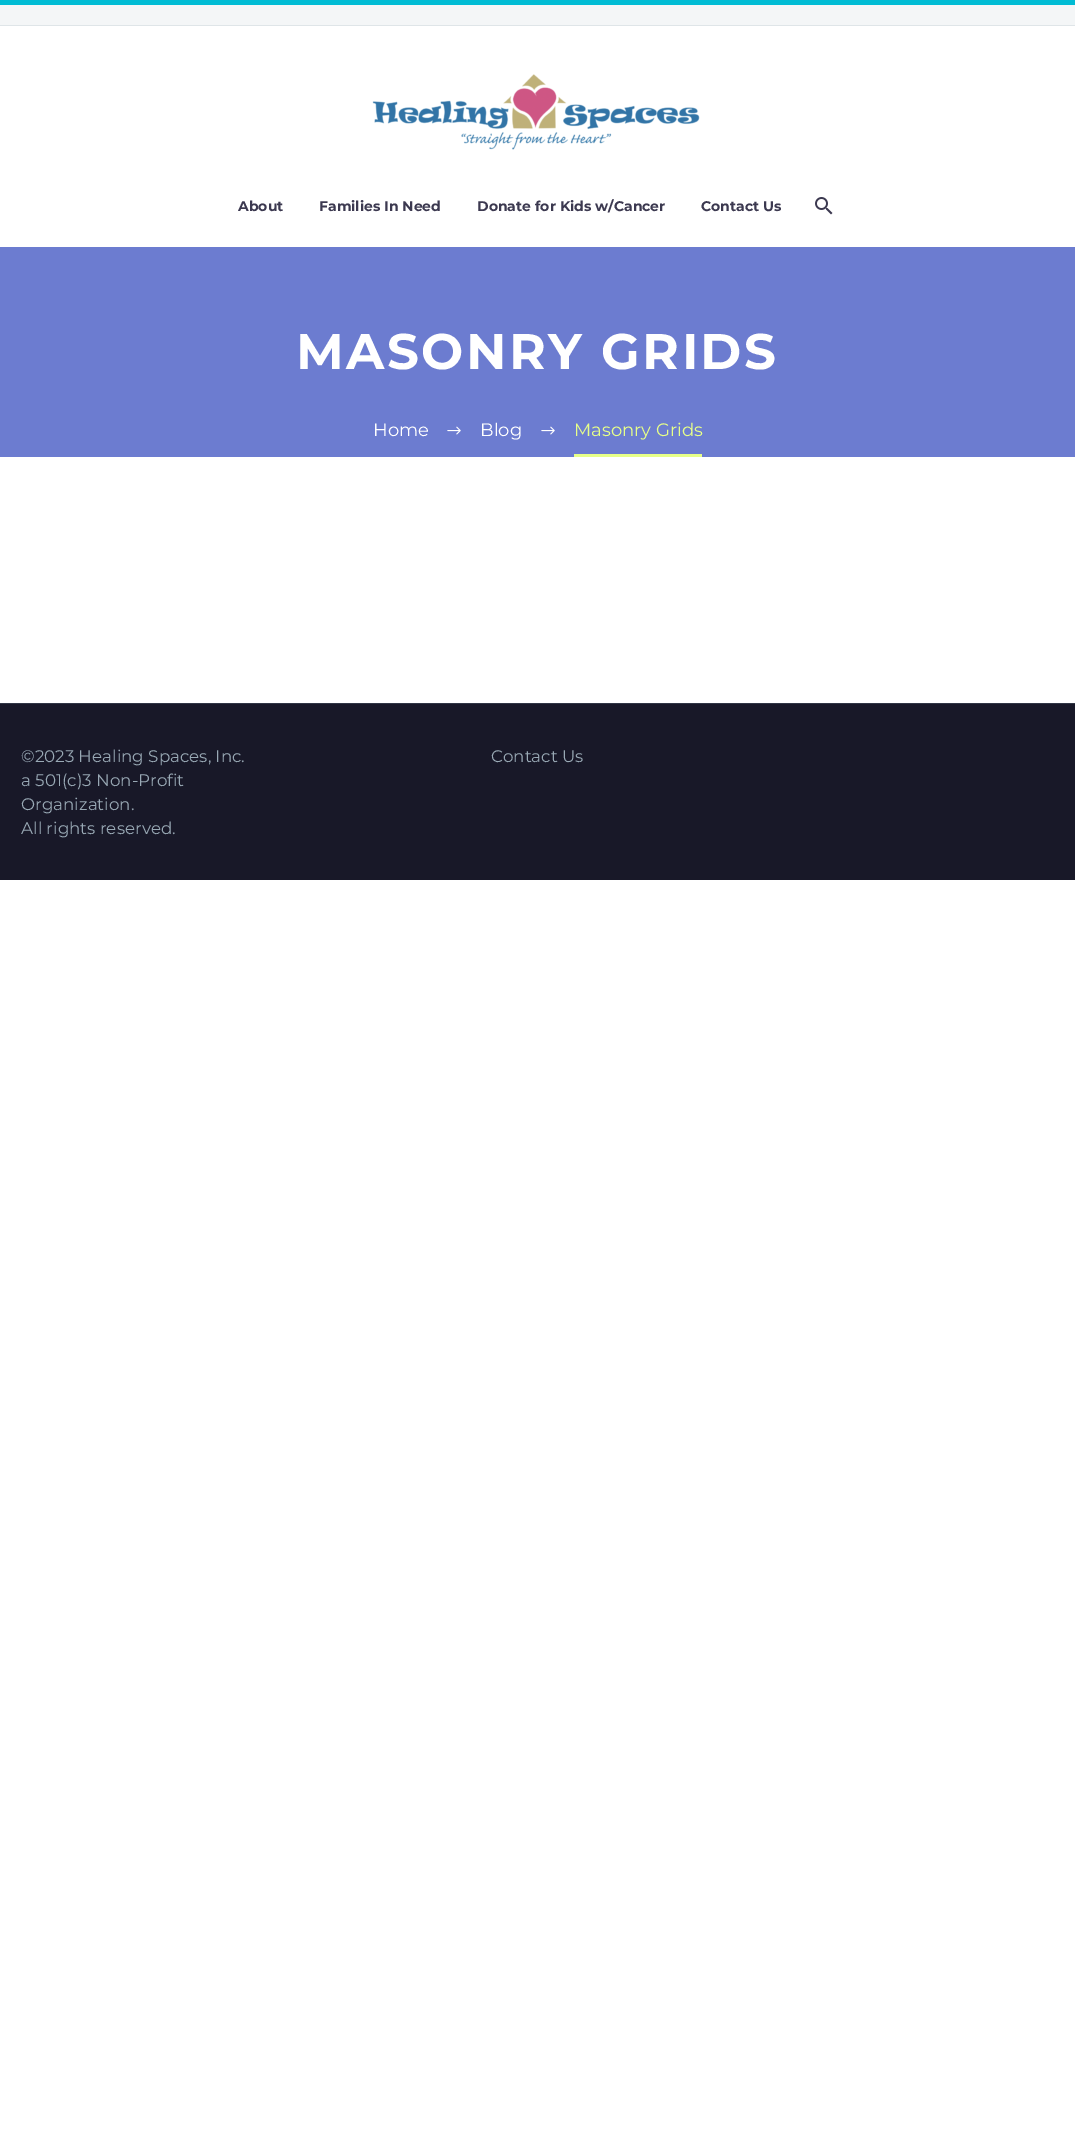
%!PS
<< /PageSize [1075 2146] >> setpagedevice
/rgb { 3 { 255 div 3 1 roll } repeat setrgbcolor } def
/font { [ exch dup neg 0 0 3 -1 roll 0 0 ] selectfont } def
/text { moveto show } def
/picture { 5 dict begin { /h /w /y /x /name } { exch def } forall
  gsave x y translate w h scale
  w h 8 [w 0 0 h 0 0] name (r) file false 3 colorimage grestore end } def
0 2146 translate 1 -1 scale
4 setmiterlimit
255 255 255 rgb
0 0 1075 2146 rectfill
244 246 247 rgb
0 5 1075 20 rectfill
0 188 212 rgb
0 0 1075 5 rectfill
223 229 232 rgb
0 25 1075 1 rectfill
(img_01.rgb) 372 74 328 76 picture
(img_02.rgb) 815 197 18 18 picture
108 124 208 rgb
0 247 1075 210 rectfill
(img_03.rgb) 447 426 14 9 picture
(img_03.rgb) 541 426 14 9 picture
231 255 137 rgb
574 454 128 3 rectfill
24 24 40 rgb
0 704 1075 176 rectfill
49 54 70 rgb
0 703 1075 1 rectfill
/Montserrat-Bold 14 font
60 57 80 rgb
(About) 238 211 text
(Families In Need) 319 211 text
(Donate for Kids w/Cancer) 477 211 text
(Contact Us) 701 211 text
/Montserrat-Bold 50 font
255 255 255 rgb
296 369 moveto 2.5 0 (MASONRY GRIDS) ashow
/Montserrat-Regular 18 font
(Home) 373 436 text
(Blog) 480 436 text
231 255 137 rgb
(Masonry Grids) 574 436 text
/Montserrat-Regular 16.75 font
153 169 181 rgb
(©2023 Healing Spaces, Inc.) 21 762 text
(a 501\(c\)3 Non-Profit) 21 786 text
(Organization.) 21 810 text
(All rights reserved.) 21 834 text
(Contact Us) 491 762 text
showpage
